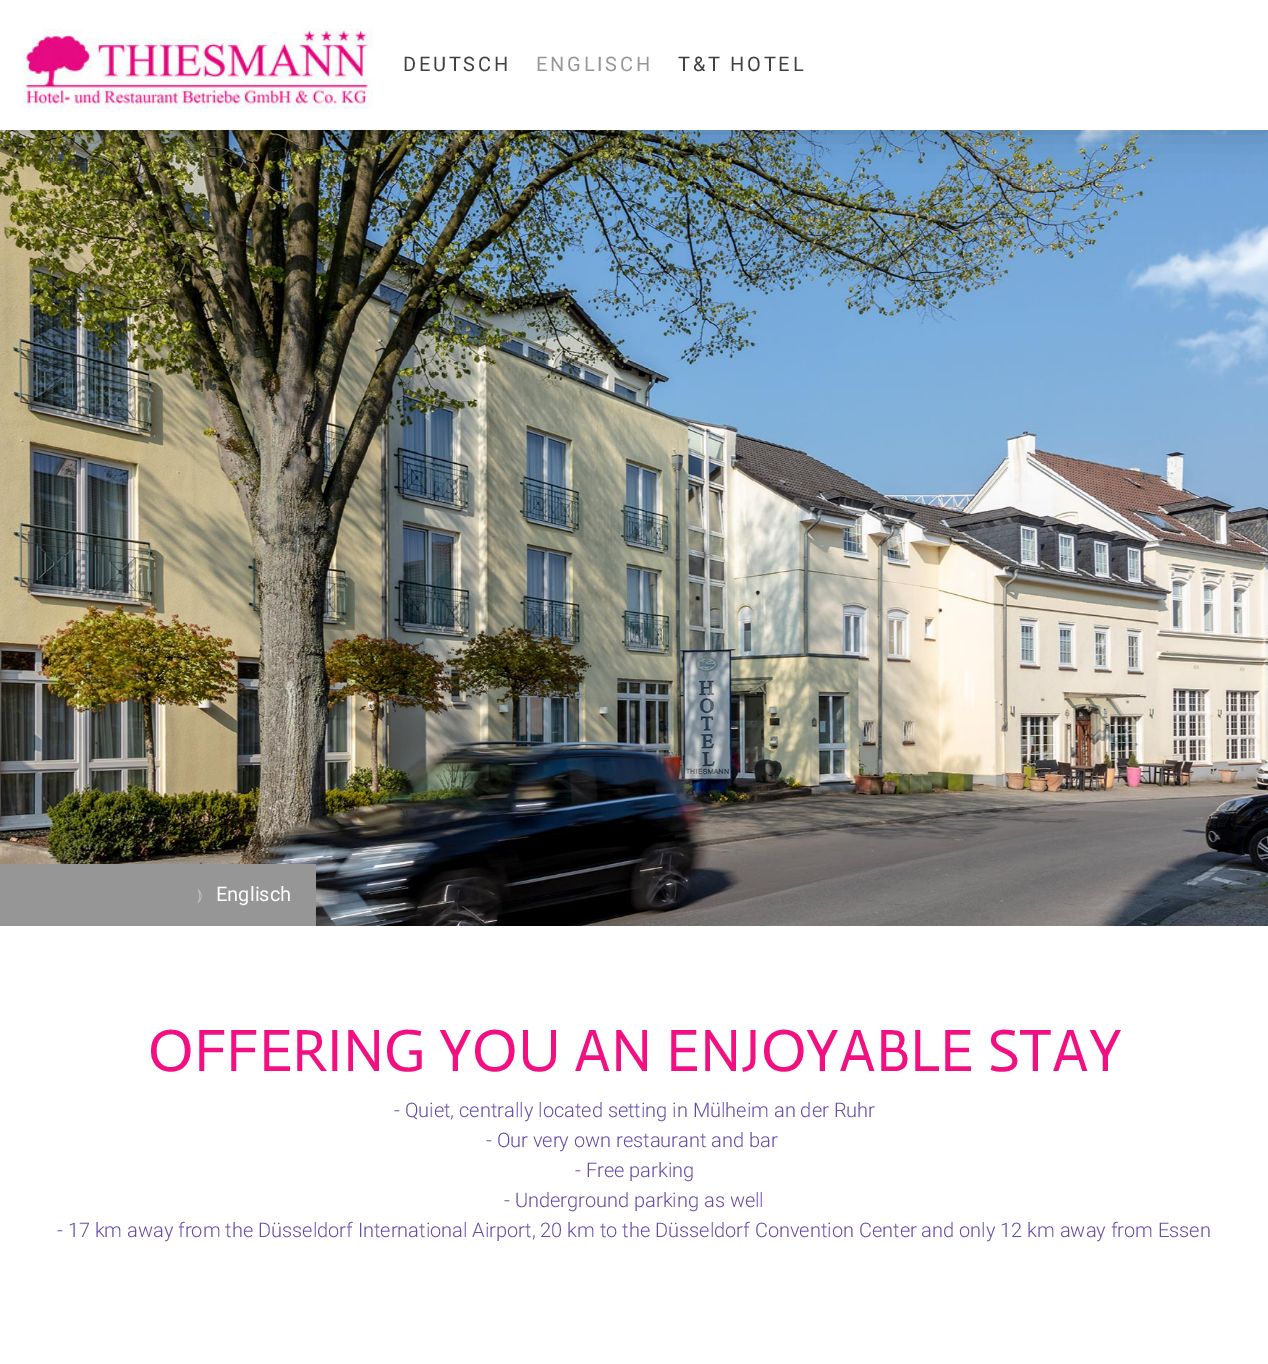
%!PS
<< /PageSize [1268 1364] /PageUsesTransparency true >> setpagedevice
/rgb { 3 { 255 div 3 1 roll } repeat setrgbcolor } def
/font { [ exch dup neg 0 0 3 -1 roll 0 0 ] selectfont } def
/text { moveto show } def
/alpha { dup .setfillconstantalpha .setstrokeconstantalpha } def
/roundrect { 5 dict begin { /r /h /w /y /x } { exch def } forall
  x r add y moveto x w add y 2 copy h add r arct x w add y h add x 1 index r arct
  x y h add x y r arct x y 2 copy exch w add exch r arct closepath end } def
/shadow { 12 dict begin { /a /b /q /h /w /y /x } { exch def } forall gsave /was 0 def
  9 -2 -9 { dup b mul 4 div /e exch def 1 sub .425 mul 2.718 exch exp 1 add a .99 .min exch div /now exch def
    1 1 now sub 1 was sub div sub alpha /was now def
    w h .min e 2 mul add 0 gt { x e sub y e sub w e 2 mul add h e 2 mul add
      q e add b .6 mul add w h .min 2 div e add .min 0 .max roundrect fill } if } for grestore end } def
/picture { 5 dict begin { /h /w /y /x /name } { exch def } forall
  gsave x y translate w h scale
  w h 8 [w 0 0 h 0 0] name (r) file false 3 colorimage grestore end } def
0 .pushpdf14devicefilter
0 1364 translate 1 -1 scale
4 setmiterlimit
255 255 255 rgb
0 0 1268 1364 rectfill
(img_02.rgb) 0 130 1268 796 picture
0 0 0 rgb
0 0 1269 130 0 19 0.2 shadow
255 255 255 rgb
0 0 1268 130 rectfill
(img_01.rgb) 22 28 351 81 picture
150 150 150 rgb
0 864 316 62 rectfill
/Roboto-Regular 20 font
64 64 64 rgb
403 71 moveto 2.75 0 (DEUTSCH) ashow
150 150 150 rgb
536 71 moveto 2.75 0 (ENGLISCH) ashow
64 64 64 rgb
678 71 moveto 2.75 0 (T&T HOTEL) ashow
/FreeSerif-Regular 16 font
203 203 203 rgb
(⦆) 197 900 text
/Roboto-Regular 20 font
255 255 255 rgb
(Englisch) 216 901 text
/Actor-Regular 60 font
242 15 130 rgb
(OFFERING YOU AN ENJOYABLE STAY) 148 1071 text
/Roboto-Light 20 font
103 75 169 rgb
(- Quiet, centrally located setting in Mülheim an der Ruhr) 394 1117 text
(- Our very own restaurant and bar) 486 1147 text
(- Free parking) 575 1177 text
(- Underground parking as well) 504 1207 text
(- 17 km away from the Düsseldorf International Airport, 20 km to the Düsseldorf Convention Center and only 12 km away from Essen) 57 1237 text
.poppdf14devicefilter showpage
